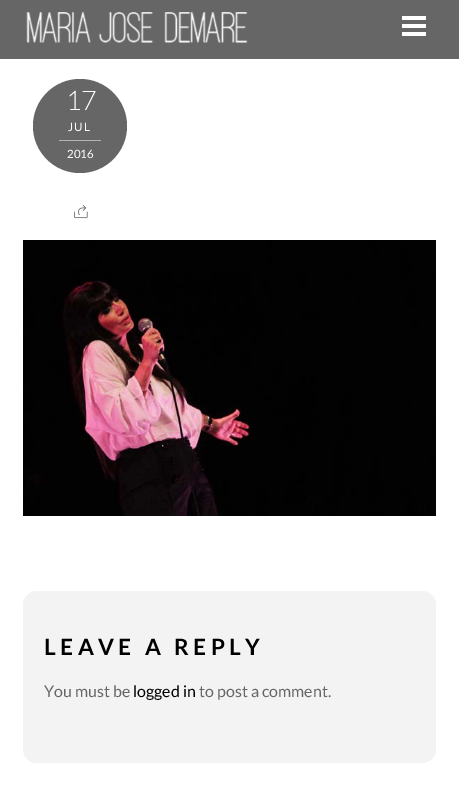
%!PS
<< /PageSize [459 801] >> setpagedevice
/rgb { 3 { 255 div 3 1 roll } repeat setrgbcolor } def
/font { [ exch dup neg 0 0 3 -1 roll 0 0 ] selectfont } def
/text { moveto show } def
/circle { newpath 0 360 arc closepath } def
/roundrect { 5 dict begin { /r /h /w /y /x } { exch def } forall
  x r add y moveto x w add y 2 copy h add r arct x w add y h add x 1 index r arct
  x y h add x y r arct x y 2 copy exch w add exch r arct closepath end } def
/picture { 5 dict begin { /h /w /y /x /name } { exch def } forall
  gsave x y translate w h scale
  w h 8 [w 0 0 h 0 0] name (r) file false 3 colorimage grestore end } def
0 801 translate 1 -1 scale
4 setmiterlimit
255 255 255 rgb
0 0 459 801 rectfill
102 102 102 rgb
0 0 459 59 rectfill
(img_01.rgb) 26 12 222 31 picture
255 255 255 rgb
402 16 24 4 rectfill
402 32 24 4 rectfill
402 24 24 4 rectfill
102 102 102 rgb
80 126 47 circle fill
179 179 179 rgb
59 140 42 1 rectfill
(img_02.rgb) 74 205 14 14 picture
(img_03.rgb) 23 240 413 276 picture
243 243 243 rgb
23 591 413 172 14 roundrect fill
/Lato-Light 27 font
255 255 255 rgb
66 110 moveto -1 0 (17) ashow
/Lato-Regular 11.5 font
68 131 moveto 1 0 (JUL) ashow
(2016) 67 158 text
/Lato-Bold 22.5 font
0 0 0 rgb
44 655 moveto 4.5 0 (LEAVE A REPLY) ashow
/Lato-Regular 16 font
102 102 102 rgb
(You must be) 44 697 text
0 0 0 rgb
(logged in) 133 697 text
102 102 102 rgb
(to post a comment.) 199 697 text
showpage
